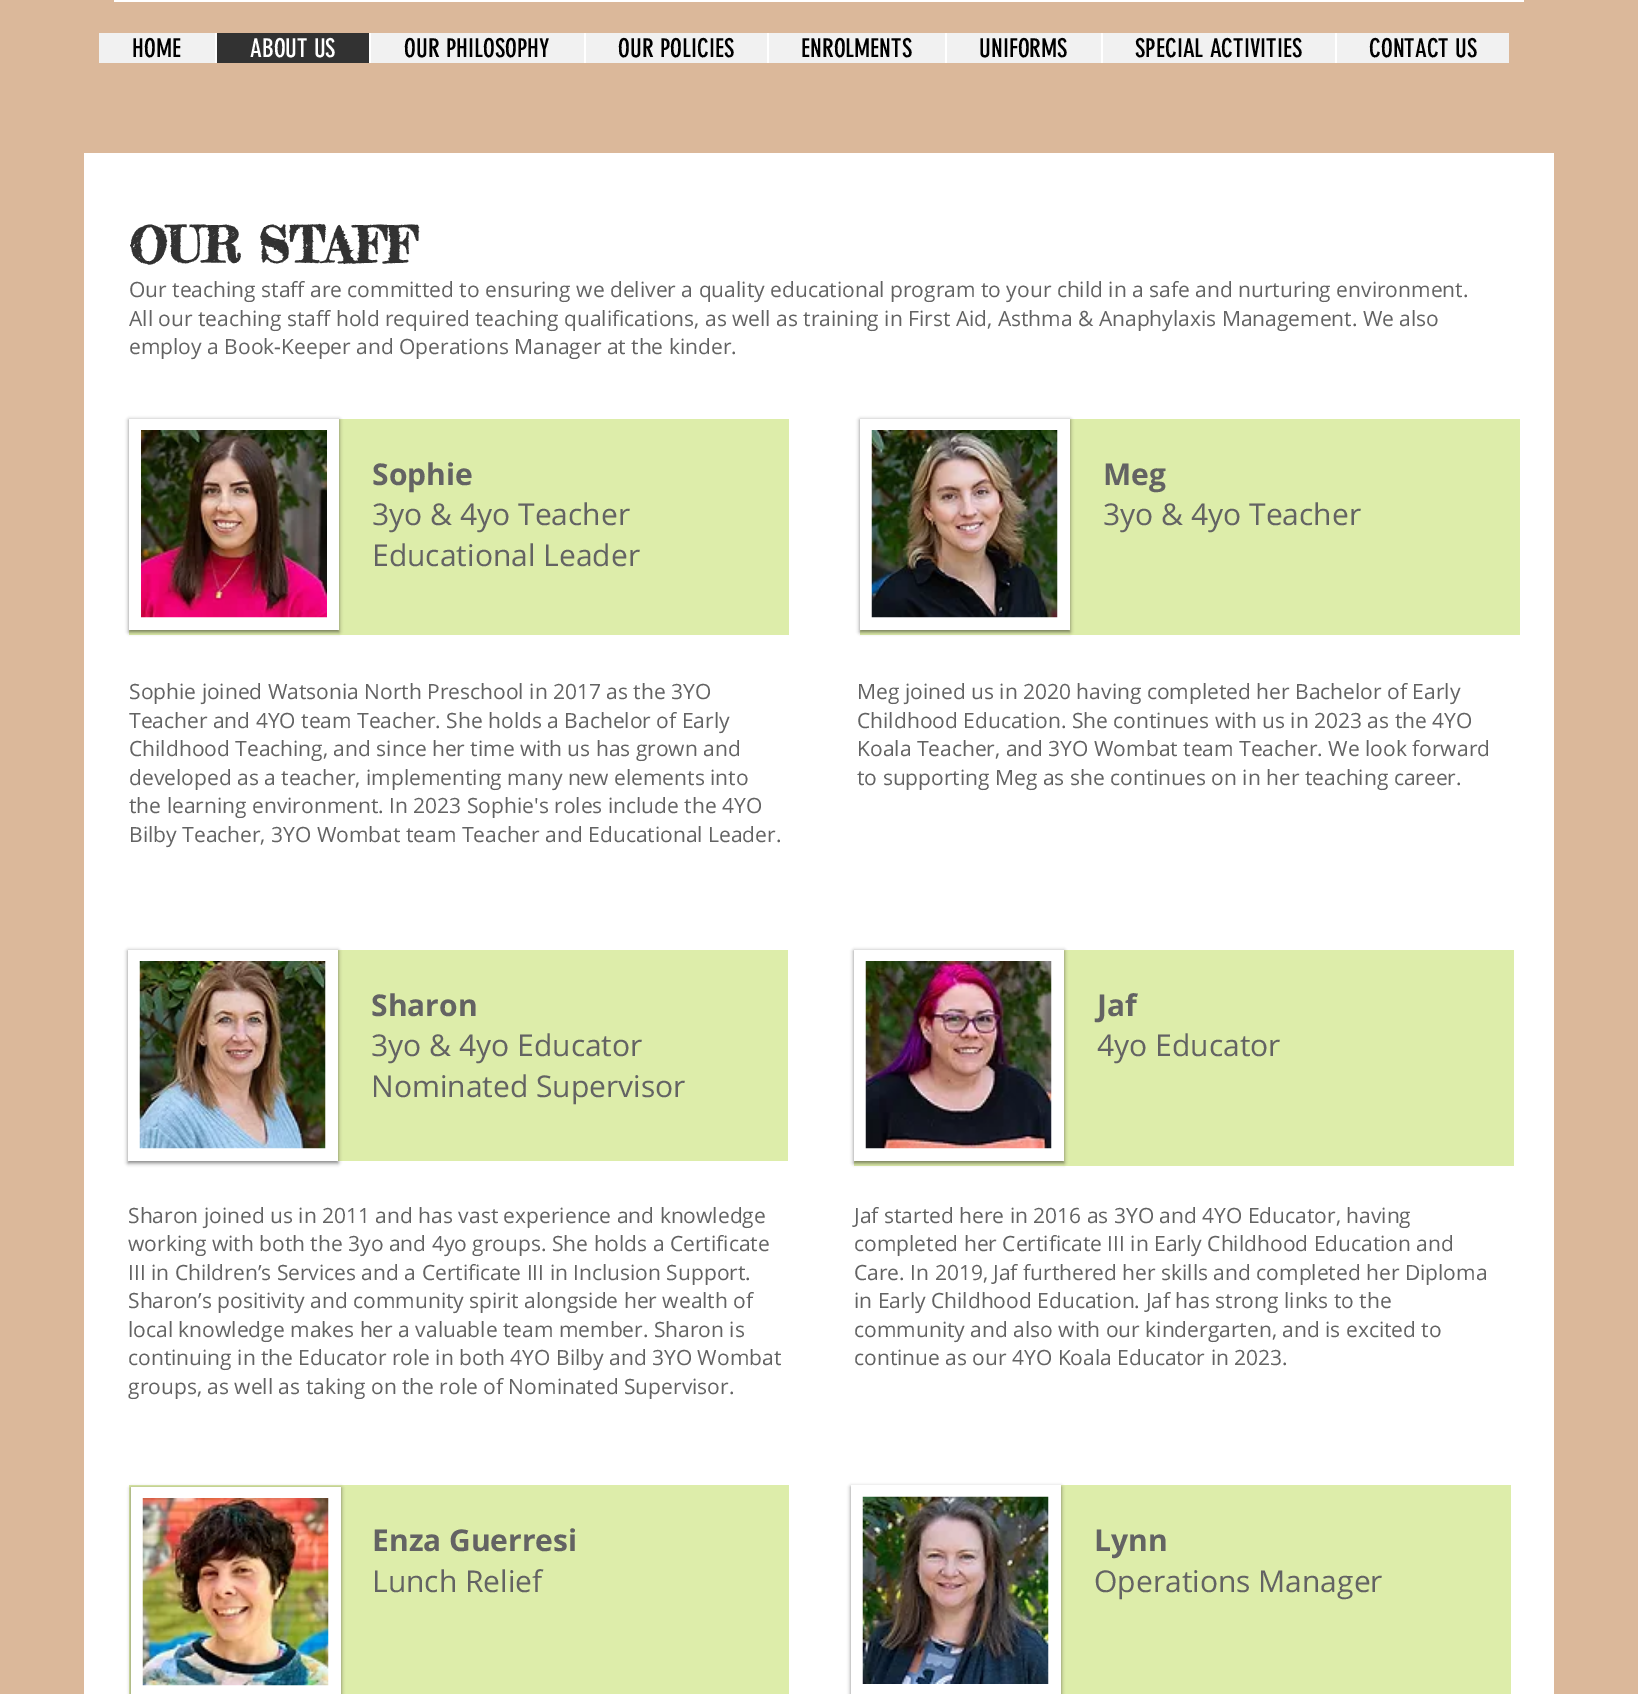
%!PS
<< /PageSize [1638 1694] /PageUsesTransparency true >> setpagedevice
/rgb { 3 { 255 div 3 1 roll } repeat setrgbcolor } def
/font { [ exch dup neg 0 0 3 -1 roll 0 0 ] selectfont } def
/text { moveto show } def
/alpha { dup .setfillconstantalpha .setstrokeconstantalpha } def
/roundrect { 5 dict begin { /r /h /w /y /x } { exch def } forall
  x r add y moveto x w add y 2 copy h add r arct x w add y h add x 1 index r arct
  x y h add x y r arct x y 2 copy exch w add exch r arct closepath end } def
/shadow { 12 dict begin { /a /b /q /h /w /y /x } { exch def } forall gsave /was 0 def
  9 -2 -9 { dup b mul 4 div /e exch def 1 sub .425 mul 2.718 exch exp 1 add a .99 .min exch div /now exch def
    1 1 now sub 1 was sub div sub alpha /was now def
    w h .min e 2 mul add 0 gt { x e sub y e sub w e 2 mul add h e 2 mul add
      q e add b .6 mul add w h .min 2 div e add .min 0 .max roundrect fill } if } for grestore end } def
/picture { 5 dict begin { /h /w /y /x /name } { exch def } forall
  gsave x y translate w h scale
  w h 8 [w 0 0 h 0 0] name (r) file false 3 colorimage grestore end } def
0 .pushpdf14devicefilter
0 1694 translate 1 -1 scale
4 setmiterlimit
219 184 154 rgb
0 0 1638 1694 rectfill
255 255 255 rgb
114 0 1410 2 rectfill
241 241 241 rgb
99 33 1410 30 rectfill
50 50 50 rgb
217 33 152 30 rectfill
255 255 255 rgb
215 33 2 30 rectfill
369 33 2 30 rectfill
584 33 2 30 rectfill
767 33 2 30 rectfill
945 33 2 30 rectfill
1101 33 2 30 rectfill
1335 33 2 30 rectfill
84 153 1470 1541 rectfill
221 237 170 rgb
129 419 660 216 rectfill
0 0 0 rgb
129 420 210 212 0 2 0.5 shadow
255 255 255 rgb
129 419 210 211 rectfill
(img_01.rgb) 141 430 186 188 picture
221 237 170 rgb
860 419 660 216 rectfill
0 0 0 rgb
860 420 210 212 0 2 0.5 shadow
255 255 255 rgb
860 419 210 211 rectfill
(img_02.rgb) 871 430 187 188 picture
221 237 170 rgb
338 950 450 211 rectfill
0 0 0 rgb
128 951 210 212 0 2 0.5 shadow
255 255 255 rgb
128 950 210 211 rectfill
(img_03.rgb) 139 961 187 188 picture
221 237 170 rgb
854 950 660 216 rectfill
0 0 0 rgb
854 951 210 212 0 2 0.5 shadow
255 255 255 rgb
854 950 210 211 rectfill
(img_04.rgb) 865 961 187 188 picture
221 237 170 rgb
129 1485 660 209 rectfill
0 0 0 rgb
131 1488 210 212 0 2 0.5 shadow
255 255 255 rgb
131 1487 210 207 rectfill
(img_05.rgb) 142 1498 187 188 picture
221 237 170 rgb
1061 1485 450 209 rectfill
0 0 0 rgb
851 1487 210 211 0 2 0.5 shadow
255 255 255 rgb
851 1485 210 209 rectfill
(img_06.rgb) 862 1496 187 188 picture
/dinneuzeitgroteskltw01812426-Regular 25.5 font
0 0 0 rgb
(HOME) 132 57 text
255 255 255 rgb
(ABOUT US) 250 57 text
0 0 0 rgb
(OUR PHILOSOPHY) 404 57 text
(OUR POLICIES) 618 57 text
(ENROLMENTS) 801 57 text
(UNIFORMS) 979 57 text
(SPECIAL ACTIVITIES) 1135 57 text
(CONTACT US) 1369 57 text
/FrederickatheGreat-Bold 49.5 font
50 50 50 rgb
(OUR STAFF) 129 263 text
/OpenSans-Regular 21 font
99 99 99 rgb
(Our teaching staff are committed to ensuring we deliver a quality educational program to your child in a safe and nurturing environment.) 129 297 text
(All our teaching staff hold required teaching qualifications, as well as training in First Aid, Asthma & Anaphylaxis Management. We also) 129 326 text
(employ a Book-Keeper and Operations Manager at the kinder.) 129 354 text
/OpenSans-Bold 30 font
(Sophie) 372 485 text
/OpenSans-Regular 30 font
(3yo & 4yo Teacher) 372 525 text
(Educational Leader) 372 566 text
/OpenSans-Bold 30 font
(Meg) 1103 485 text
/OpenSans-Regular 30 font
(3yo & 4yo Teacher) 1103 525 text
/OpenSans-Regular 21 font
(Sophie joined Watsonia North Preschool in 2017 as the 3YO) 129 699 text
(Teacher and 4YO team Teacher. She holds a Bachelor of Early) 129 728 text
(Childhood Teaching, and since her time with us has grown and) 129 756 text
(developed as a teacher, implementing many new elements into) 129 785 text
(the learning environment. In 2023 Sophie's roles include the 4YO) 129 813 text
(Bilby Teacher, 3YO Wombat team Teacher and Educational Leader.) 129 842 text
(Meg joined us in 2020 having completed her Bachelor of Early) 857 699 text
(Childhood Education. She continues with us in 2023 as the 4YO) 857 728 text
(Koala Teacher, and 3YO Wombat team Teacher. We look forward) 857 756 text
(to supporting Meg as she continues on in her teaching career.) 857 785 text
/OpenSans-Bold 30 font
(Sharon) 371 1016 text
/OpenSans-Regular 30 font
(3yo & 4yo Educator) 371 1056 text
(Nominated Supervisor) 371 1097 text
/OpenSans-Bold 30 font
(Jaf) 1097 1016 text
/OpenSans-Regular 30 font
(4yo Educator) 1097 1056 text
/OpenSans-Regular 21 font
(Sharon joined us in 2011 and has vast experience and knowledge) 128 1223 text
(working with both the 3yo and 4yo groups. She holds a Certificate) 128 1251 text
(III in Children’s Services and a Certificate III in Inclusion Support.) 128 1280 text
(Sharon’s positivity and community spirit alongside her wealth of) 128 1308 text
(local knowledge makes her a valuable team member. Sharon is) 128 1337 text
(continuing in the Educator role in both 4YO Bilby and 3YO Wombat) 128 1365 text
(groups, as well as taking on the role of Nominated Supervisor.) 128 1394 text
(Jaf started here in 2016 as 3YO and 4YO Educator, having) 854 1223 text
(completed her Certificate III in Early Childhood Education and) 854 1251 text
(Care. In 2019, Jaf furthered her skills and completed her Diploma) 854 1280 text
(in Early Childhood Education. Jaf has strong links to the) 854 1308 text
(community and also with our kindergarten, and is excited to) 854 1337 text
(continue as our 4YO Koala Educator in 2023.) 854 1365 text
/OpenSans-Bold 30 font
(Enza Guerresi) 372 1551 text
/OpenSans-Regular 30 font
(Lunch Relief) 372 1592 text
/OpenSans-Bold 30 font
(Lynn) 1094 1551 text
/OpenSans-Regular 30 font
(Operations Manager) 1094 1592 text
.poppdf14devicefilter showpage
